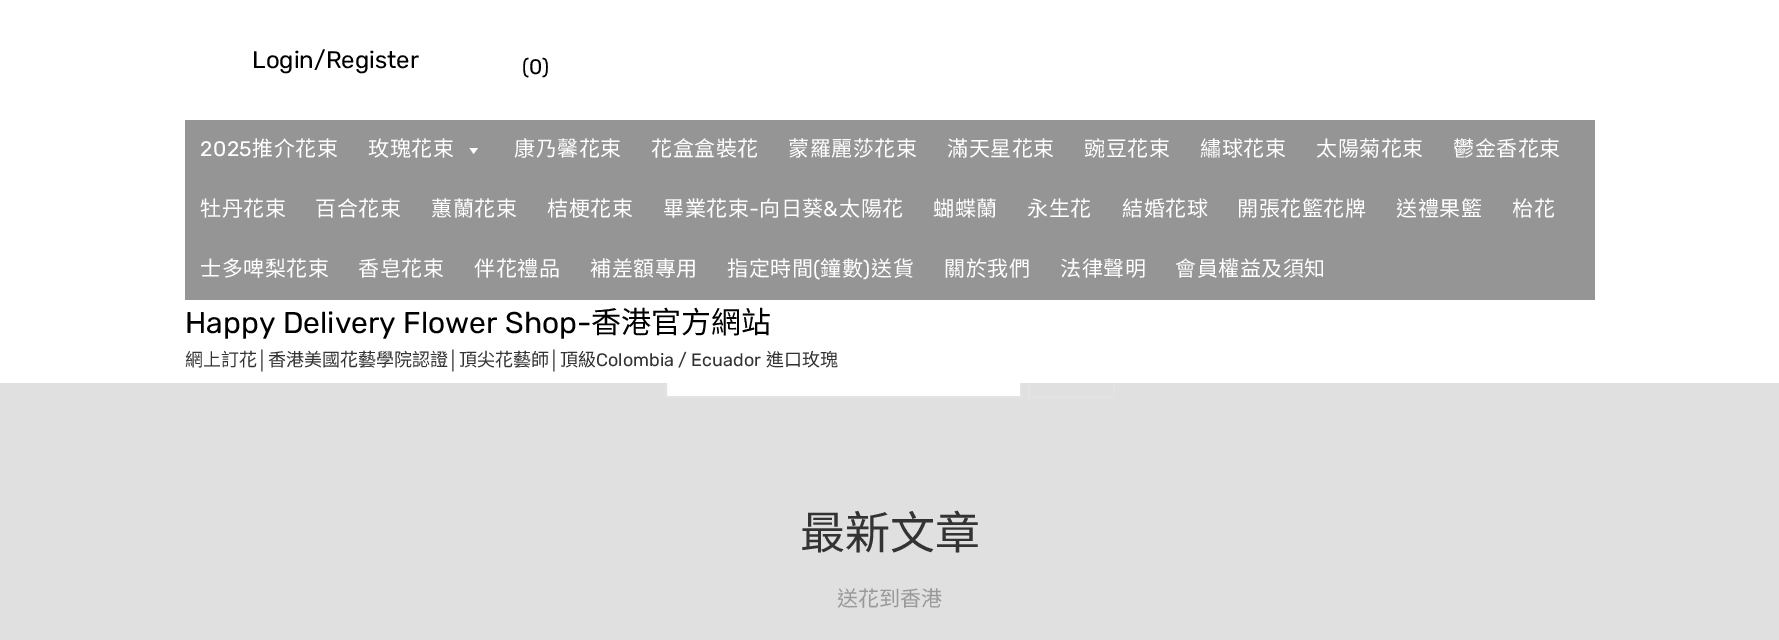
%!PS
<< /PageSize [1779 640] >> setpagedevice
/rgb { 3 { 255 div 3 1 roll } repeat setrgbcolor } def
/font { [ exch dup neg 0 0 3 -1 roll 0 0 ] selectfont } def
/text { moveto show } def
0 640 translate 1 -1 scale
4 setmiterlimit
224 224 224 rgb
0 0 1779 640 rectfill
255 255 255 rgb
667 383 353 13 rectfill
227 227 227 rgb
2 setlinewidth
666 316 355 81 rectstroke
1029 316 85 81 rectstroke
255 255 255 rgb
0 0 1779 383 rectfill
149 149 149 rgb
185 120 1410 180 rectfill
255 255 255 rgb
478 148 moveto -4.5 6 rlineto -4 -6 rlineto closepath fill
/Rubik-Regular 24 font
0 0 0 rgb
(Login/Register) 252 68 text
/Rubik-Regular 21 font
(\(0\)) 522 74 text
255 255 255 rgb
200 156 moveto 0.5 0 (2025) ashow
/NotoSansCJKHK-Regular 21 font
252 156 moveto 0.5 0 (推介花束) ashow
368 156 moveto 0.5 0 (玫瑰花束) ashow
514 156 moveto 0.5 0 (康乃馨花束) ashow
651 156 moveto 0.5 0 (花盒盒裝花) ashow
788 156 moveto 0.5 0 (蒙羅麗莎花束) ashow
947 156 moveto 0.5 0 (滿天星花束) ashow
1084 156 moveto 0.5 0 (豌豆花束) ashow
1200 156 moveto 0.5 0 (繡球花束) ashow
1316 156 moveto 0.5 0 (太陽菊花束) ashow
1453 156 moveto 0.5 0 (鬱金香花束) ashow
200 216 moveto 0.5 0 (牡丹花束) ashow
315 216 moveto 0.5 0 (百合花束) ashow
431 216 moveto 0.5 0 (蕙蘭花束) ashow
547 216 moveto 0.5 0 (桔梗花束) ashow
663 216 moveto 0.5 0 (畢業花束) ashow
/Rubik-Regular 21 font
749 216 moveto 0.5 0 (-) ashow
/NotoSansCJKHK-Regular 21 font
759 216 moveto 0.5 0 (向日葵) ashow
/Rubik-Regular 21 font
823 216 moveto 0.5 0 (&) ashow
/NotoSansCJKHK-Regular 21 font
839 216 moveto 0.5 0 (太陽花) ashow
933 216 moveto 0.5 0 (蝴蝶蘭) ashow
1027 216 moveto 0.5 0 (永生花) ashow
1122 216 moveto 0.5 0 (結婚花球) ashow
1237 216 moveto 0.5 0 (開張花籃花牌) ashow
1396 216 moveto 0.5 0 (送禮果籃) ashow
1512 216 moveto 0.5 0 (枱花) ashow
200 276 moveto 0.5 0 (士多啤梨花束) ashow
358 276 moveto 0.5 0 (香皂花束) ashow
474 276 moveto 0.5 0 (伴花禮品) ashow
590 276 moveto 0.5 0 (補差額專用) ashow
727 276 moveto 0.5 0 (指定時間) ashow
/Rubik-Regular 21 font
813 276 moveto 0.5 0 (\() ashow
/NotoSansCJKHK-Regular 21 font
820 276 moveto 0.5 0 (鐘數) ashow
/Rubik-Regular 21 font
863 276 moveto 0.5 0 (\)) ashow
/NotoSansCJKHK-Regular 21 font
871 276 moveto 0.5 0 (送貨) ashow
944 276 moveto 0.5 0 (關於我們) ashow
1060 276 moveto 0.5 0 (法律聲明) ashow
1175 276 moveto 0.5 0 (會員權益及須知) ashow
/Rubik-Regular 30 font
0 0 0 rgb
(Happy Delivery Flower Shop-) 185 333 text
/NotoSansCJKHK-Regular 30 font
(香港官方網站) 591 333 text
/NotoSansCJKHK-Regular 18 font
51 51 51 rgb
(網上訂花) 185 366 text
/LiberationSans-Regular 18 font
(│) 257 366 text
/NotoSansCJKHK-Regular 18 font
(香港美國花藝學院認證) 268 366 text
/LiberationSans-Regular 18 font
(│) 448 366 text
/NotoSansCJKHK-Regular 18 font
(頂尖花藝師) 459 366 text
/LiberationSans-Regular 18 font
(│) 549 366 text
/NotoSansCJKHK-Regular 18 font
(頂級) 560 366 text
/Rubik-Regular 18 font
(Colombia / Ecuador) 596 366 text
/NotoSansCJKHK-Regular 18 font
(進口玫瑰) 766 366 text
/NotoSansCJKHK-Regular 45 font
(最新文章) 800 549 text
/NotoSansCJKHK-Regular 21 font
153 153 153 rgb
(送花到香港) 837 606 text
showpage
